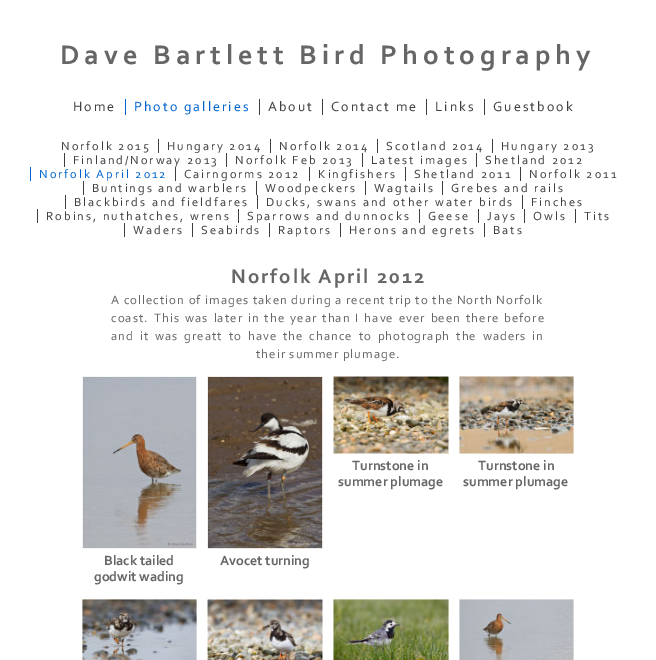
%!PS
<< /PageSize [656 660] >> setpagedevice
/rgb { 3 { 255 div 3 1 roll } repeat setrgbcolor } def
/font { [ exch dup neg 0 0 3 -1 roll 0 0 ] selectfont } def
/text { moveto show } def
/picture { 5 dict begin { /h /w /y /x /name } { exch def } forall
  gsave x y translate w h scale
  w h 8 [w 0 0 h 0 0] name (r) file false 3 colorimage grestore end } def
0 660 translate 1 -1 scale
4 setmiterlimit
255 255 255 rgb
0 0 656 660 rectfill
0 101 207 rgb
125 99 1 16 rectfill
63 63 63 rgb
259 99 1 16 rectfill
322 99 1 16 rectfill
426 99 1 16 rectfill
484 99 1 16 rectfill
158 139 1 14 rectfill
270 139 1 14 rectfill
377 139 1 14 rectfill
492 139 1 14 rectfill
64 153 1 14 rectfill
226 153 1 14 rectfill
362 153 1 14 rectfill
476 153 1 14 rectfill
0 101 207 rgb
30 167 1 14 rectfill
63 63 63 rgb
175 167 1 14 rectfill
309 167 1 14 rectfill
405 167 1 14 rectfill
520 167 1 14 rectfill
83 181 1 14 rectfill
256 181 1 14 rectfill
365 181 1 14 rectfill
442 181 1 14 rectfill
65 195 1 14 rectfill
257 195 1 14 rectfill
522 195 1 14 rectfill
37 209 1 14 rectfill
238 209 1 14 rectfill
419 209 1 14 rectfill
478 209 1 14 rectfill
524 209 1 14 rectfill
575 209 1 14 rectfill
124 223 1 14 rectfill
192 223 1 14 rectfill
269 223 1 14 rectfill
340 223 1 14 rectfill
484 223 1 14 rectfill
(img_01.rgb) 333 376 116 78 picture
(img_02.rgb) 459 376 115 78 picture
(img_03.rgb) 82 376 115 173 picture
(img_04.rgb) 207 376 116 173 picture
(img_05.rgb) 82 599 115 61 picture
(img_06.rgb) 207 599 116 61 picture
(img_07.rgb) 333 599 116 61 picture
(img_08.rgb) 459 599 115 61 picture
/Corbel-Bold 28.2 font
102 102 102 rgb
60 64 moveto 5 0 (Dave Bartlett Bird Photography) ashow
/Corbel-Regular 14 font
63 63 63 rgb
73 111 moveto 2 0 (Home) ashow
0 101 207 rgb
134 111 moveto 2 0 (Photo galleries) ashow
63 63 63 rgb
268 111 moveto 2 0 (About) ashow
331 111 moveto 2 0 (Contact me) ashow
435 111 moveto 2 0 (Links) ashow
493 111 moveto 2 0 (Guestbook) ashow
/Corbel-Regular 12.4 font
61 150 moveto 2 0 (Norfolk 2015) ashow
167 150 moveto 2 0 (Hungary 2014) ashow
279 150 moveto 2 0 (Norfolk 2014) ashow
386 150 moveto 2 0 (Scotland 2014) ashow
501 150 moveto 2 0 (Hungary 2013) ashow
73 164 moveto 2 0 (Finland/Norway 2013) ashow
235 164 moveto 2 0 (Norfolk Feb 2013) ashow
371 164 moveto 2 0 (Latest images) ashow
485 164 moveto 2 0 (Shetland 2012) ashow
0 101 207 rgb
39 178 moveto 2 0 (Norfolk April 2012) ashow
63 63 63 rgb
184 178 moveto 2 0 (Cairngorms 2012) ashow
318 178 moveto 2 0 (Kingfishers) ashow
414 178 moveto 2 0 (Shetland 2011) ashow
529 178 moveto 2 0 (Norfolk 2011) ashow
92 192 moveto 2 0 (Buntings and warblers) ashow
265 192 moveto 2 0 (Woodpeckers) ashow
374 192 moveto 2 0 (Wagtails) ashow
451 192 moveto 2 0 (Grebes and rails) ashow
74 206 moveto 2 0 (Blackbirds and fieldfares) ashow
266 206 moveto 2 0 (Ducks, swans and other water birds) ashow
531 206 moveto 2 0 (Finches) ashow
46 220 moveto 2 0 (Robins, nuthatches, wrens) ashow
247 220 moveto 2 0 (Sparrows and dunnocks) ashow
428 220 moveto 2 0 (Geese) ashow
487 220 moveto 2 0 (Jays) ashow
533 220 moveto 2 0 (Owls) ashow
584 220 moveto 2 0 (Tits) ashow
133 234 moveto 2 0 (Waders) ashow
201 234 moveto 2 0 (Seabirds) ashow
278 234 moveto 2 0 (Raptors) ashow
349 234 moveto 2 0 (Herons and egrets) ashow
493 234 moveto 2 0 (Bats) ashow
/Corbel-Bold 20.5 font
102 102 102 rgb
231 283 moveto 2 0 (Norfolk April 2012) ashow
/Corbel-Regular 12.8 font
111 304 moveto 1 0 (A collection of images taken during a recent trip to the North Norfolk) ashow
111 322 moveto 1 0 (coast.) ashow
154 322 moveto 1.4 0 32 1 0 (This was later in the year than I have ever been there before) awidthshow
111 340 moveto 2.25 0 32 1 0 (and it was greatt to have the chance to photograph the waders in) awidthshow
256 358 moveto 1 0 (their summer plumage.) ashow
/Corbel-Bold 14 font
(Turnstone in) 352 470 text
(summer plumage) 338 486 text
(Turnstone in) 478 470 text
(summer plumage) 463 486 text
(Black tailed) 104 565 text
(godwit wading) 94 581 text
(Avocet turning) 220 565 text
showpage
